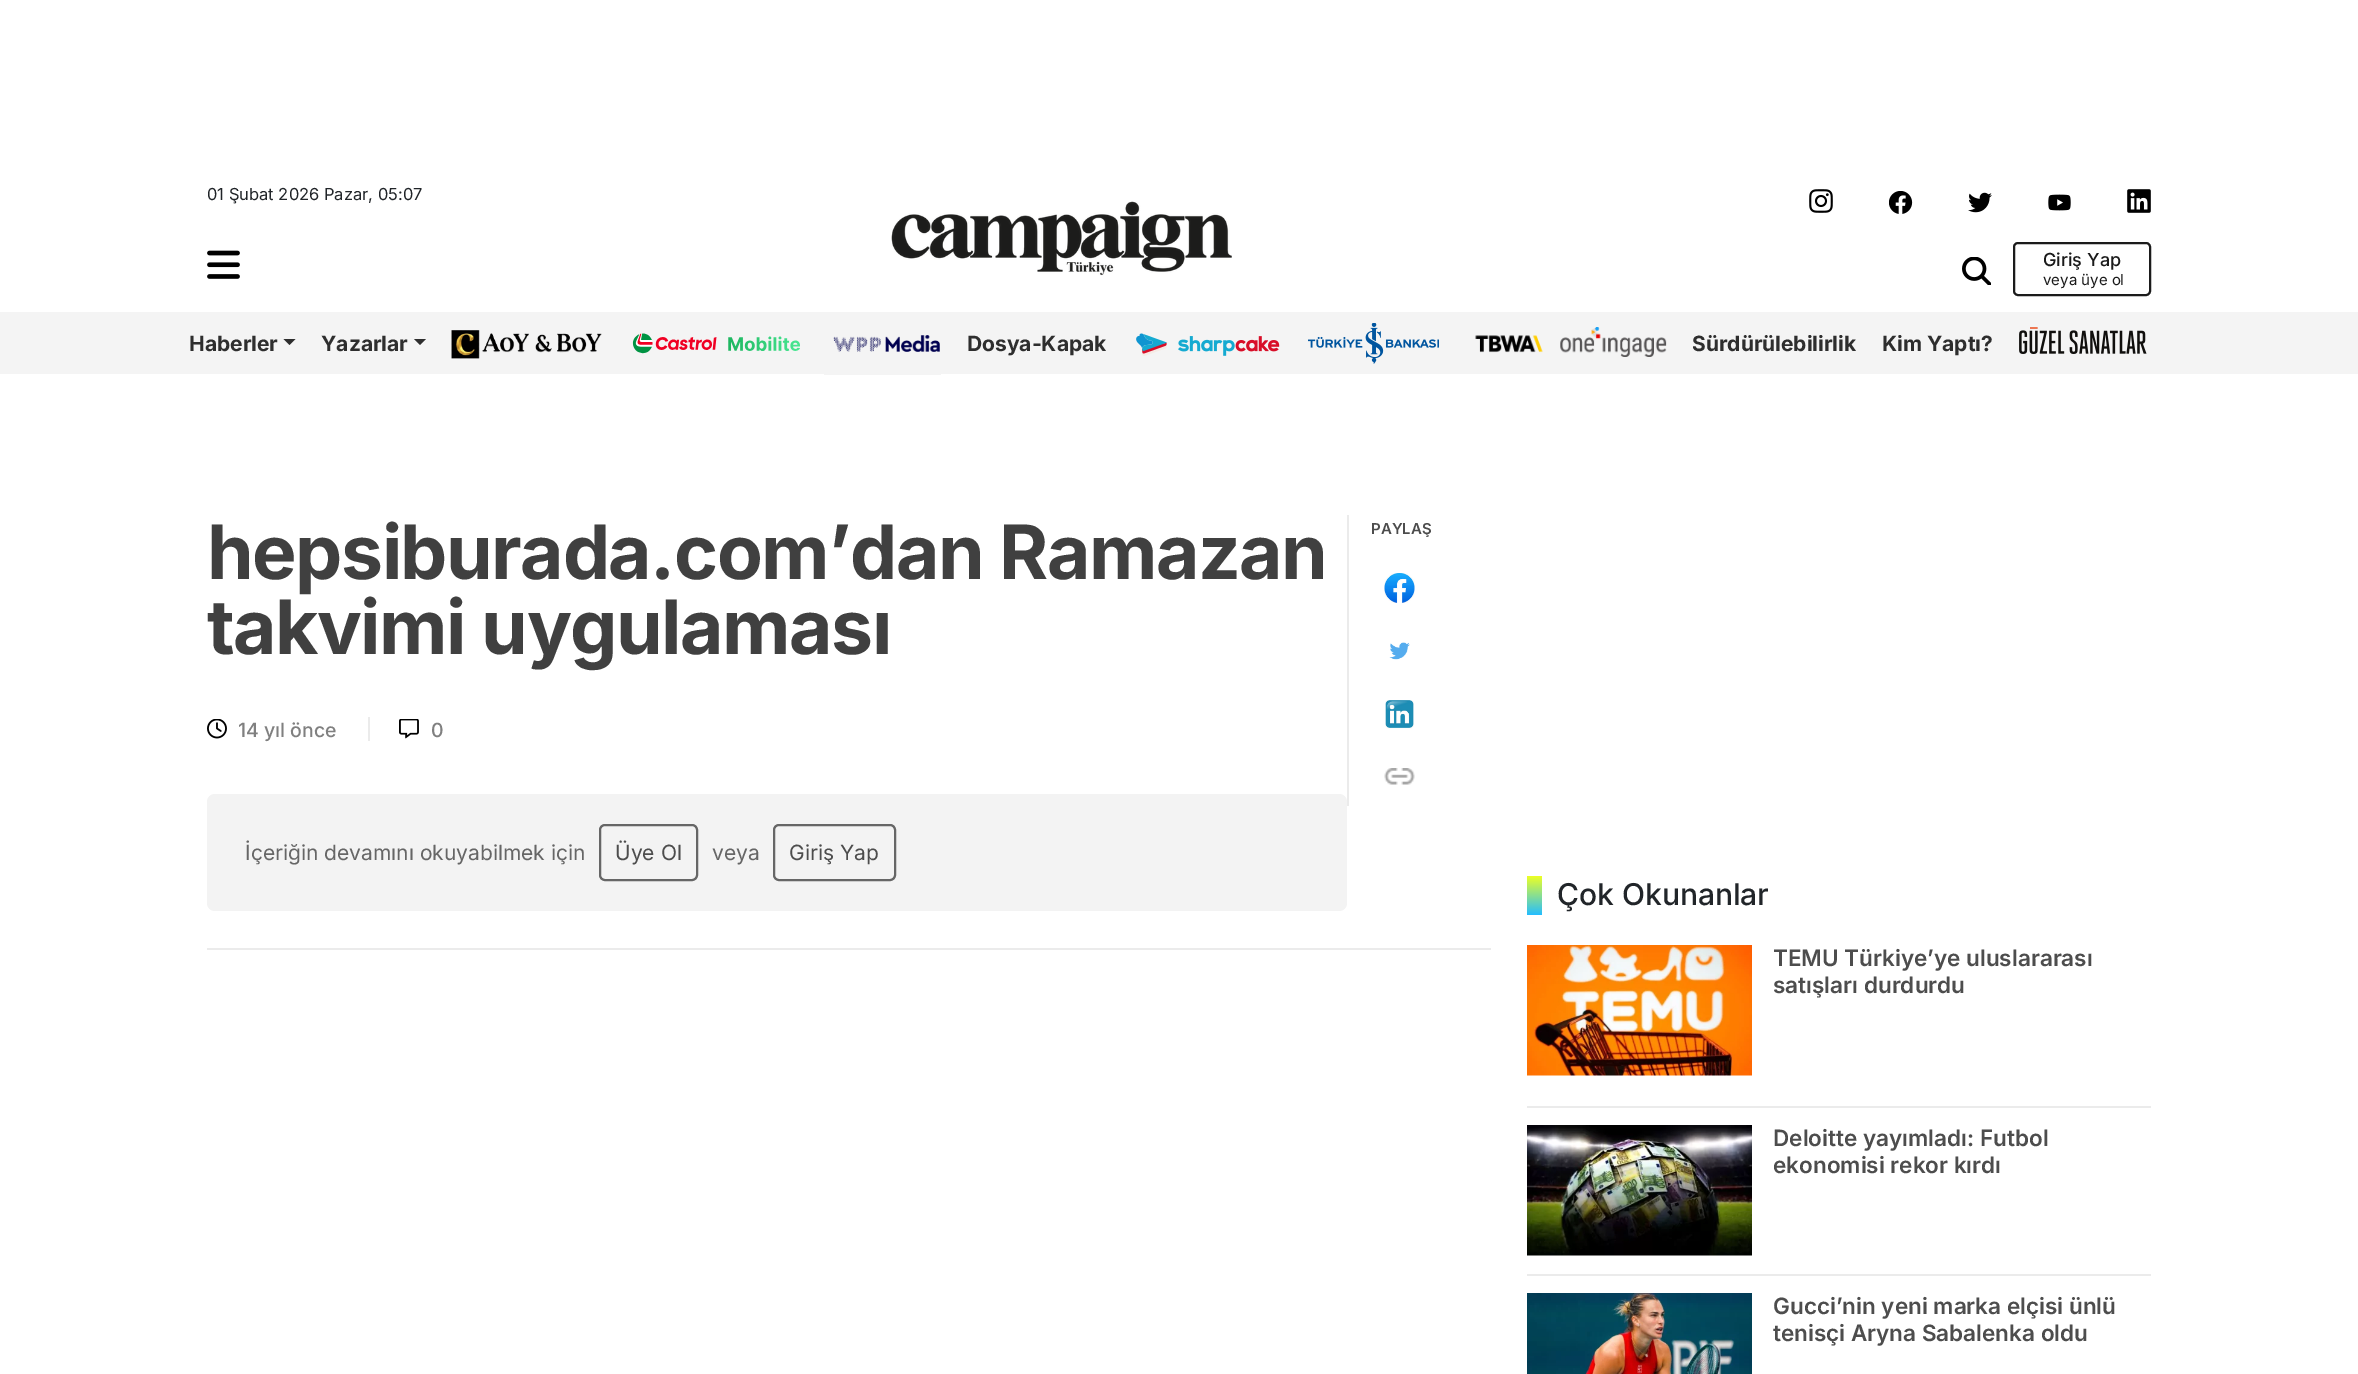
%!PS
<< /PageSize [2358 1374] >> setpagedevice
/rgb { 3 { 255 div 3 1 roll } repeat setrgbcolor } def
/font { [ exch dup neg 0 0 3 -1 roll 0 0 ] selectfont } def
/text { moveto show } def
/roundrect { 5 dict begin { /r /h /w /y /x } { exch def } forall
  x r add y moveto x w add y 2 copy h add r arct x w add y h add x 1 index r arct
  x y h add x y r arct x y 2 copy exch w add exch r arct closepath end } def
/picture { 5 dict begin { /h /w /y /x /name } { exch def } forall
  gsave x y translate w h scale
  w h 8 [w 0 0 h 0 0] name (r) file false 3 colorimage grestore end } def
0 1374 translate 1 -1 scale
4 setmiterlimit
255 255 255 rgb
0 0 2358 1374 rectfill
(img_01.rgb) 207 250 33 29 picture
(img_02.rgb) 891 201 341 75 picture
(img_03.rgb) 1809 189 24 24 picture
(img_04.rgb) 1889 191 24 23 picture
(img_05.rgb) 1968 192 24 21 picture
(img_06.rgb) 2048 194 23 17 picture
(img_07.rgb) 2127 189 24 24 picture
(img_08.rgb) 1962 257 29 28 picture
27 27 27 rgb
2 setlinewidth
2014 243 136 52 4 roundrect stroke
244 244 244 rgb
0 312 2358 62 rectfill
46 46 46 rgb
283.5 339 moveto 12 0 rlineto -6 6 rlineto closepath fill
414 339 moveto 12 0 rlineto -6 6 rlineto closepath fill
(img_09.rgb) 451 330 151 29 picture
(img_10.rgb) 632 333 168 21 picture
244 244 244 rgb
824 374 117 1 rectfill
(img_11.rgb) 833 335 107 17 picture
(img_12.rgb) 1136 333 144 23 picture
(img_13.rgb) 1308 323 131 41 picture
(img_14.rgb) 1475 335 68 18 picture
(img_15.rgb) 1560 327 107 30 picture
(img_16.rgb) 2019 327 128 27 picture
235 235 235 rgb
207 948 1284 2 rectfill
368 717 2 24 rectfill
(img_17.rgb) 207 719 20 20 picture
(img_18.rgb) 399 719 20 20 picture
243 243 243 rgb
207 794 1140 117 8 roundrect fill
102 102 102 rgb
600 825 97 55 5 roundrect stroke
774 825 121 55 5 roundrect stroke
235 235 235 rgb
1347 515 2 291 rectfill
(img_19.rgb) 1384 573 31 30 picture
(img_20.rgb) 1389 642 21 18 picture
(img_21.rgb) 1385 700 29 29 picture
(img_22.rgb) 1384 768 31 17 picture
gsave 1527 876 moveto 15 0 rlineto 0 39 rlineto -15 0 rlineto closepath clip newpath
<< /ShadingType 2 /ColorSpace /DeviceRGB /Coords [1535 876 1535 915] /Extend [true true] /Function << /FunctionType 2 /Domain [0 1] /C0 [0.929 1 0.141] /C1 [0.141 0.741 1] /N 1 >> >> shfill grestore
1527 1106 624 2 rectfill
(img_23.rgb) 1527 945 225 131 picture
1527 1274 624 2 rectfill
(img_24.rgb) 1527 1125 225 131 picture
(img_25.rgb) 1527 1293 225 81 picture
/Inter-Regular 16.5 font
33 37 41 rgb
(01 Şubat 2026 Pazar, 05:07) 207 200 text
/Inter-Medium 18 font
27 27 27 rgb
(Giriş Yap) 2043 266 text
/Inter-Regular 15 font
(veya üye ol) 2043 285 text
/Inter-Bold 21 font
46 46 46 rgb
(Haberler) 189 351 text
(Yazarlar) 321 351 text
(Dosya-Kapak) 967 351 text
(Sürdürülebilirlik) 1692 351 text
(Kim Yaptı?) 1882 351 text
/Inter-Bold 75 font
64 64 64 rgb
207 579 moveto -1.5 0 (hepsiburada.com’dan Ramazan) ashow
207 654 moveto -1.5 0 (takvimi uygulaması) ashow
/Inter-Medium 19.5 font
128 128 128 rgb
(14 yıl önce) 238 737 text
(0) 431 737 text
/Inter-Regular 21 font
102 102 102 rgb
(İçeriğin devamını okuyabilmek için) 245 860 text
77 77 77 rgb
(Üye Ol) 615 860 text
102 102 102 rgb
(veya) 712 860 text
77 77 77 rgb
(Giriş Yap) 789 860 text
/Inter-SemiBold 15 font
(PAYLAŞ) 1371 534 text
/Inter-Medium 30 font
33 37 41 rgb
(Çok Okunanlar) 1557 905 text
/Inter-SemiBold 22.5 font
77 77 77 rgb
(TEMU Türkiye’ye uluslararası) 1773 966 text
(satışları durdurdu) 1773 993 text
(Deloitte yayımladı: Futbol) 1773 1146 text
(ekonomisi rekor kırdı) 1773 1173 text
(Gucci’nin yeni marka elçisi ünlü) 1773 1314 text
(tenisçi Aryna Sabalenka oldu) 1773 1341 text
showpage
